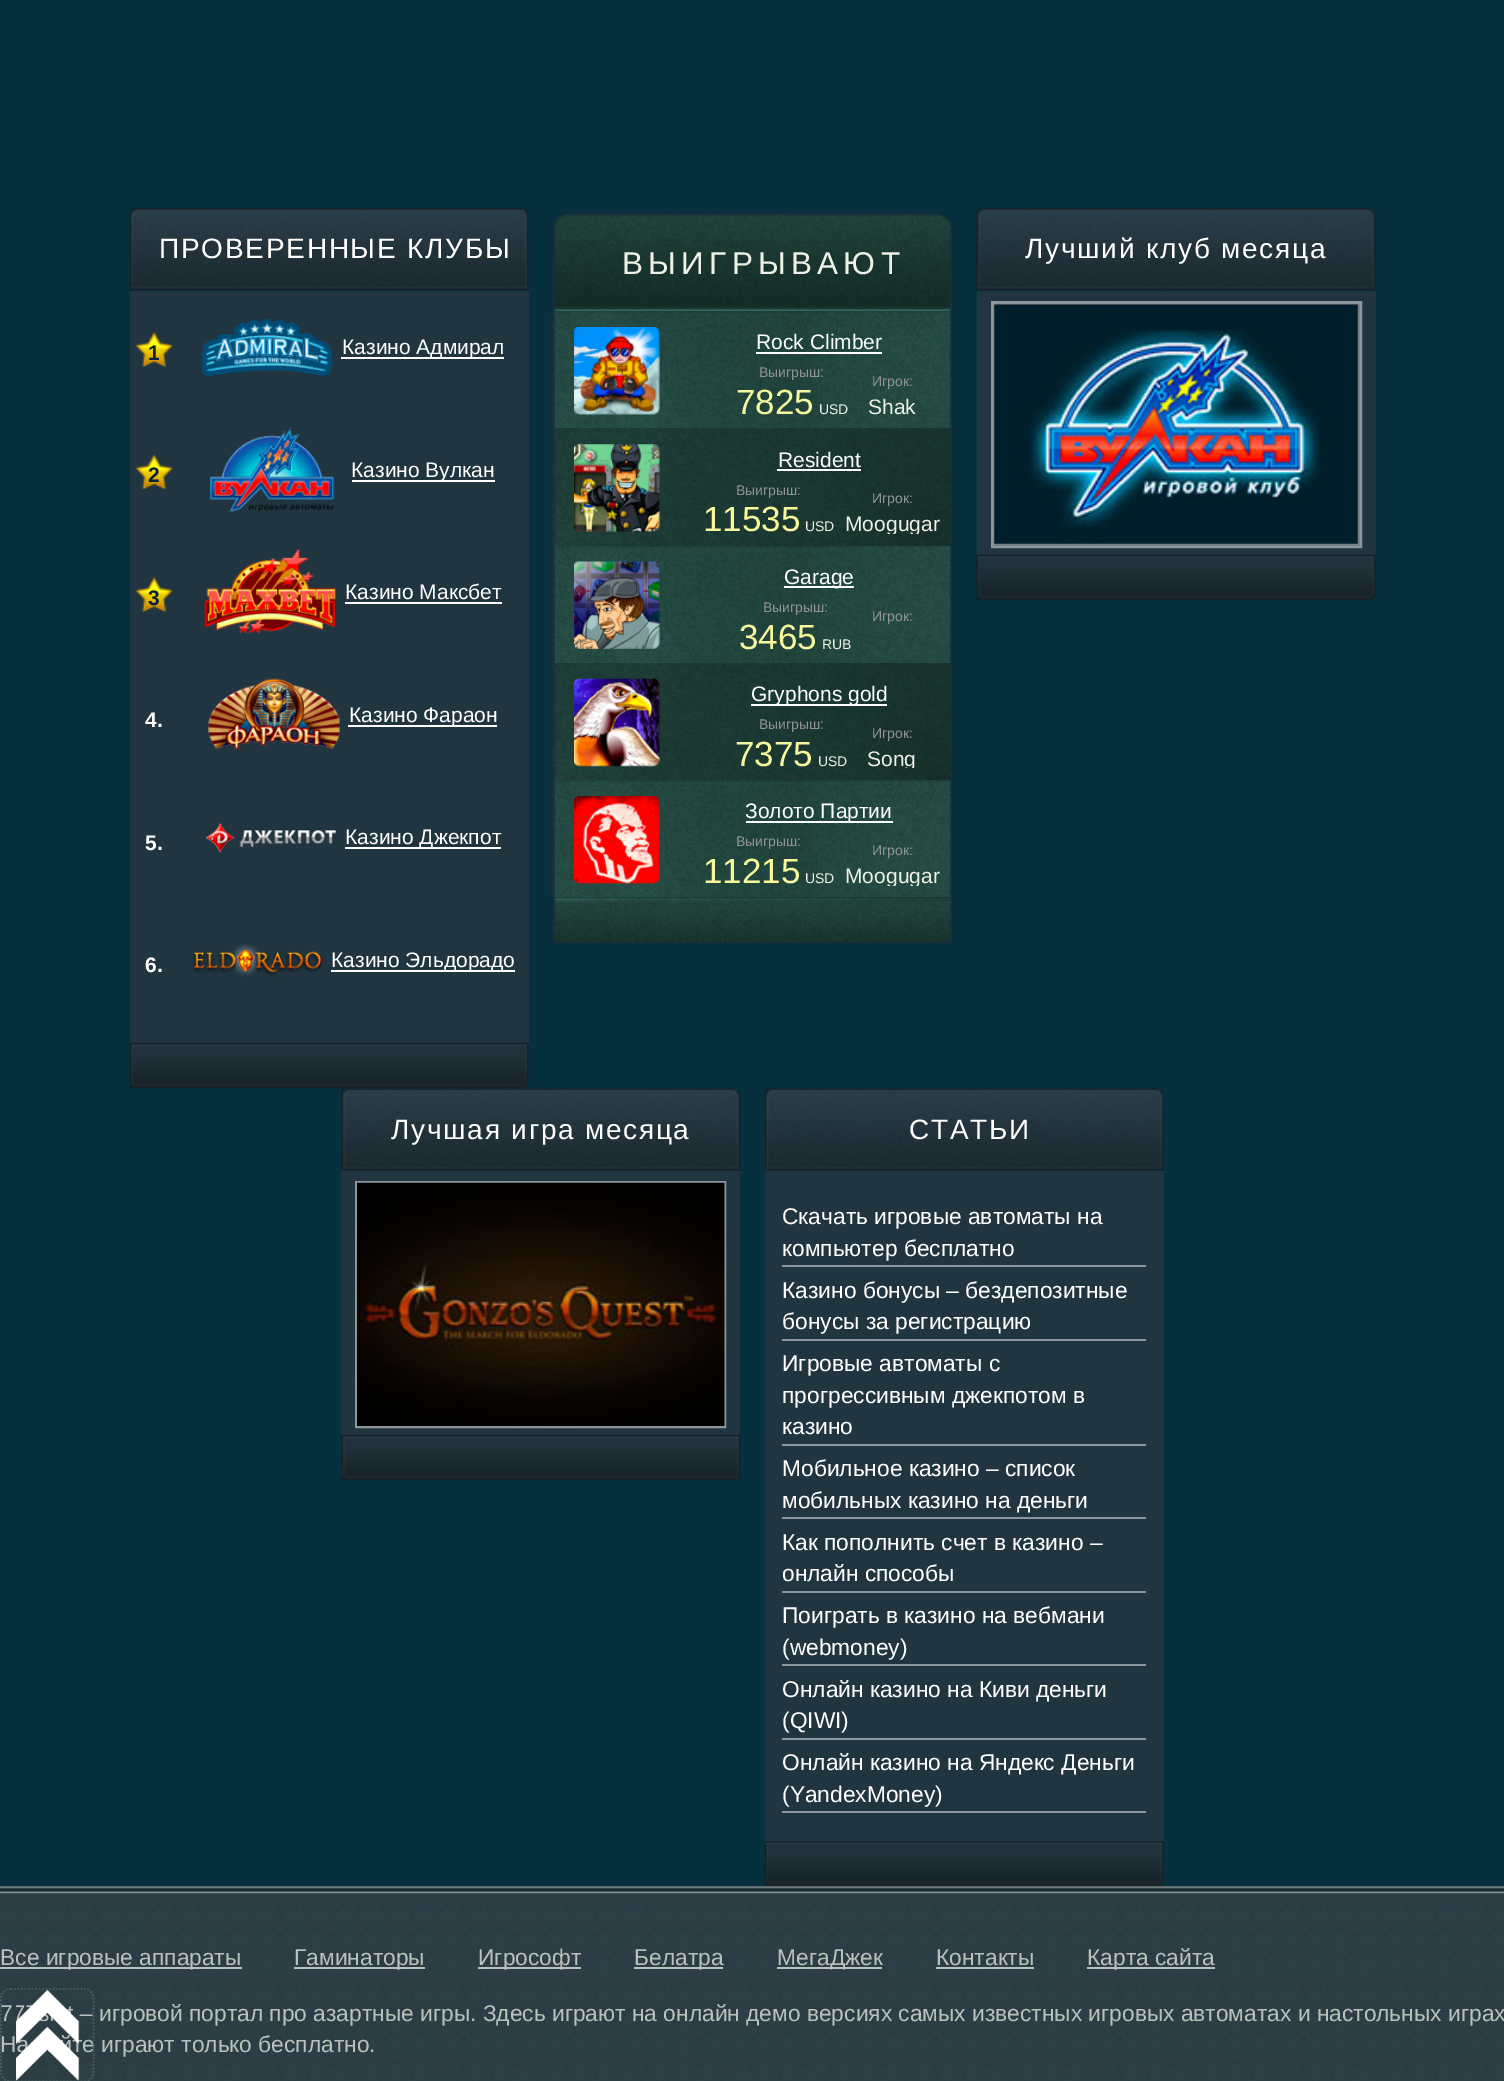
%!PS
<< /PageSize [1504 2081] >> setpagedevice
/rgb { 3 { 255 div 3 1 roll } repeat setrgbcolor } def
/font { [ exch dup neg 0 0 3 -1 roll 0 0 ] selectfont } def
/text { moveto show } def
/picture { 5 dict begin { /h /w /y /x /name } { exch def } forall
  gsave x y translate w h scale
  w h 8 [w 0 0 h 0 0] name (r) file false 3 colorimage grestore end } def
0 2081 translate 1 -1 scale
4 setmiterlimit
6 48 61 rgb
0 0 1504 2081 rectfill
(img_01.rgb) 129 208 400 83 picture
32 53 64 rgb
130 291 399 752 rectfill
(img_02.rgb) 135 332 38 36 picture
(img_03.rgb) 201 318 132 58 picture
255 255 255 rgb
341 357 163 2 rectfill
(img_04.rgb) 135 454 38 36 picture
(img_05.rgb) 210 427 125 86 picture
352 480 143 2 rectfill
(img_02.rgb) 135 577 38 36 picture
(img_06.rgb) 204 549 132 85 picture
345 602 157 2 rectfill
(img_07.rgb) 208 678 132 73 picture
348 725 149 2 rectfill
(img_08.rgb) 205 823 131 30 picture
345 847 156 2 rectfill
(img_09.rgb) 193 944 129 33 picture
331 970 184 2 rectfill
(img_10.rgb) 129 1042 400 47 picture
(img_11.rgb) 552 212 400 100 picture
(img_12.rgb) 551 311 401 118 picture
(img_13.rgb) 574 327 86 88 picture
756 352 126 2 rectfill
(img_14.rgb) 551 428 401 118 picture
(img_15.rgb) 574 444 86 88 picture
777 469 84 2 rectfill
(img_16.rgb) 551 545 401 118 picture
(img_17.rgb) 574 561 86 88 picture
784 586 70 2 rectfill
(img_18.rgb) 551 663 401 118 picture
(img_19.rgb) 574 678 86 89 picture
751 704 136 2 rectfill
(img_23.rgb) 552 897 400 46 picture
(img_20.rgb) 551 780 401 118 picture
(img_21.rgb) 574 796 86 88 picture
746 821 147 2 rectfill
(img_22.rgb) 556 897 394 1 picture
(img_24.rgb) 976 208 400 83 picture
32 53 64 rgb
977 291 399 264 rectfill
139 149 155 rgb
2 setlinewidth
992 302 369 245 rectstroke
(img_25.rgb) 992 302 368 244 picture
(img_26.rgb) 976 554 400 46 picture
(img_27.rgb) 341 1088 400 83 picture
32 53 64 rgb
341 1171 399 264 rectfill
139 149 155 rgb
356 1182 369 245 rectstroke
(img_28.rgb) 357 1182 368 244 picture
(img_29.rgb) 341 1434 400 47 picture
(img_30.rgb) 764 1088 400 83 picture
(img_31.rgb) 764 1840 400 47 picture
32 53 64 rgb
765 1171 399 670 rectfill
139 149 155 rgb
782 1265 364 2 rectfill
782 1339 364 2 rectfill
782 1444 364 2 rectfill
782 1517 364 2 rectfill
782 1591 364 2 rectfill
782 1664 364 2 rectfill
782 1738 364 2 rectfill
782 1811 364 2 rectfill
(img_32.rgb) 0 1886 1504 195 picture
(img_33.rgb) 0 1886 1504 8 picture
186 193 188 rgb
0 1967 242 2 rectfill
294 1967 131 2 rectfill
478 1967 103 2 rectfill
634 1967 89 2 rectfill
777 1967 105 2 rectfill
936 1967 98 2 rectfill
1087 1967 128 2 rectfill
/LiberationSans-Regular 28 font
255 255 255 rgb
159 258 moveto 1.75 0 (ПРОВЕРЕННЫЕ КЛУБЫ) ashow
/LiberationSans-Bold 21 font
7 32 67 rgb
(1) 148 360 text
/LiberationSans-Regular 21 font
255 255 255 rgb
(Казино Адмирал) 342 354 text
/LiberationSans-Bold 21 font
7 32 67 rgb
(2) 148 482 text
/LiberationSans-Regular 21 font
255 255 255 rgb
(Казино Вулкан) 351 477 text
/LiberationSans-Bold 21 font
7 32 67 rgb
(3) 148 605 text
/LiberationSans-Regular 21 font
255 255 255 rgb
(Казино Максбет) 345 599 text
/LiberationSans-Bold 21 font
(4.) 145 727 text
/LiberationSans-Regular 21 font
(Казино Фараон) 349 722 text
/LiberationSans-Bold 21 font
(5.) 145 850 text
/LiberationSans-Regular 21 font
(Казино Джекпот) 345 844 text
/LiberationSans-Bold 21 font
(6.) 145 972 text
/LiberationSans-Regular 21 font
(Казино Эльдорадо) 331 967 text
/LiberationSans-Regular 31.5 font
239 240 230 rgb
622 274 moveto 5.25 0 (ВЫИГРЫВАЮТ) ashow
/LiberationSans-Regular 21 font
255 255 255 rgb
(Rock Climber) 756 349 text
/LiberationSans-Regular 14 font
147 147 147 rgb
(Выигрыш:) 759 377 text
/LiberationSans-Regular 35 font
247 247 157 rgb
(7825) 736 414 text
/LiberationSans-Regular 14 font
239 240 230 rgb
(USD) 819 414 text
147 147 147 rgb
(Игрок:) 872 386 text
/LiberationSans-Regular 21 font
239 240 230 rgb
(Shak) 868 414 text
255 255 255 rgb
(Resident) 778 467 text
/LiberationSans-Regular 14 font
147 147 147 rgb
(Выигрыш:) 736 495 text
/LiberationSans-Regular 35 font
247 247 157 rgb
(11535) 703 531 text
/LiberationSans-Regular 14 font
239 240 230 rgb
(USD) 805 531 text
147 147 147 rgb
(Игрок:) 872 503 text
gsave
684 445 268 89 rectclip
/LiberationSans-Regular 21 font
239 240 230 rgb
(Moogugar) 845 531 text
grestore
/LiberationSans-Regular 21 font
255 255 255 rgb
(Garage) 784 584 text
/LiberationSans-Regular 14 font
147 147 147 rgb
(Выигрыш:) 763 612 text
/LiberationSans-Regular 35 font
247 247 157 rgb
(3465) 739 649 text
/LiberationSans-Regular 14 font
239 240 230 rgb
(RUB) 822 649 text
147 147 147 rgb
(Игрок:) 872 621 text
/LiberationSans-Regular 21 font
255 255 255 rgb
(Gryphons gold) 751 701 text
/LiberationSans-Regular 14 font
147 147 147 rgb
(Выигрыш:) 759 729 text
/LiberationSans-Regular 35 font
247 247 157 rgb
(7375) 735 766 text
/LiberationSans-Regular 14 font
239 240 230 rgb
(USD) 818 766 text
147 147 147 rgb
(Игрок:) 872 738 text
gsave
684 679 268 89 rectclip
/LiberationSans-Regular 21 font
239 240 230 rgb
(Song) 867 766 text
grestore
/LiberationSans-Regular 21 font
255 255 255 rgb
(Золото Партии) 745 818 text
/LiberationSans-Regular 14 font
147 147 147 rgb
(Выигрыш:) 736 846 text
/LiberationSans-Regular 35 font
247 247 157 rgb
(11215) 703 883 text
/LiberationSans-Regular 14 font
239 240 230 rgb
(USD) 805 883 text
147 147 147 rgb
(Игрок:) 872 855 text
gsave
684 796 268 90 rectclip
/LiberationSans-Regular 21 font
239 240 230 rgb
(Moogugar) 845 883 text
grestore
/LiberationSans-Regular 28 font
255 255 255 rgb
1025 258 moveto 1.75 0 (Лучший клуб месяца) ashow
391 1139 moveto 1.75 0 (Лучшая игра месяца) ashow
909 1139 moveto 1.75 0 (СТАТЬИ) ashow
/LiberationSans-Regular 22.75 font
(Скачать игровые автоматы на) 782 1224 text
(компьютер бесплатно) 782 1256 text
(Казино бонусы – бездепозитные) 782 1298 text
(бонусы за регистрацию) 782 1329 text
(Игровые автоматы с) 782 1371 text
(прогрессивным джекпотом в) 782 1403 text
(казино) 782 1434 text
(Мобильное казино – список) 782 1476 text
(мобильных казино на деньги) 782 1508 text
(Как пополнить счет в казино –) 782 1550 text
(онлайн способы) 782 1581 text
(Поиграть в казино на вебмани) 782 1623 text
(\(webmoney\)) 782 1655 text
(Онлайн казино на Киви деньги) 782 1697 text
(\(QIWI\)) 782 1728 text
(Онлайн казино на Яндекс Деньги) 782 1770 text
(\(YandexMoney\)) 782 1802 text
186 193 188 rgb
(Все игровые аппараты) 0 1965 text
(Гаминаторы) 294 1965 text
(Игрософт) 478 1965 text
(Белатра) 634 1965 text
(МегаДжек) 777 1965 text
(Контакты) 936 1965 text
(Карта сайта) 1087 1965 text
(7) 0 2021 text
(– игровой портал про азартные игры. Здесь играют на онлайн демо версиях самых известных игровых автоматах и настольных играх) 80 2021 text
(На) 0 2052 text
(йте играют только бесплатно.) 59 2052 text
(img_34.rgb) 16 1989 64 92 picture
73 89 97 rgb
1.8 setlinewidth
[1.75 1.75] 0 setdash
10.5 1989 moveto 73.5 0 rlineto 5.5 0 9.5 4 9.5 9.5 rcurveto 0 73.5 rlineto 0 5.5 -4 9.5 -9.5 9.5 rcurveto -73.5 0 rlineto -5.5 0 -9.5 -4 -9.5 -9.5 rcurveto 0 -73.5 rlineto 0 -5.5 4 -9.5 9.5 -9.5 rcurveto closepath stroke
showpage
